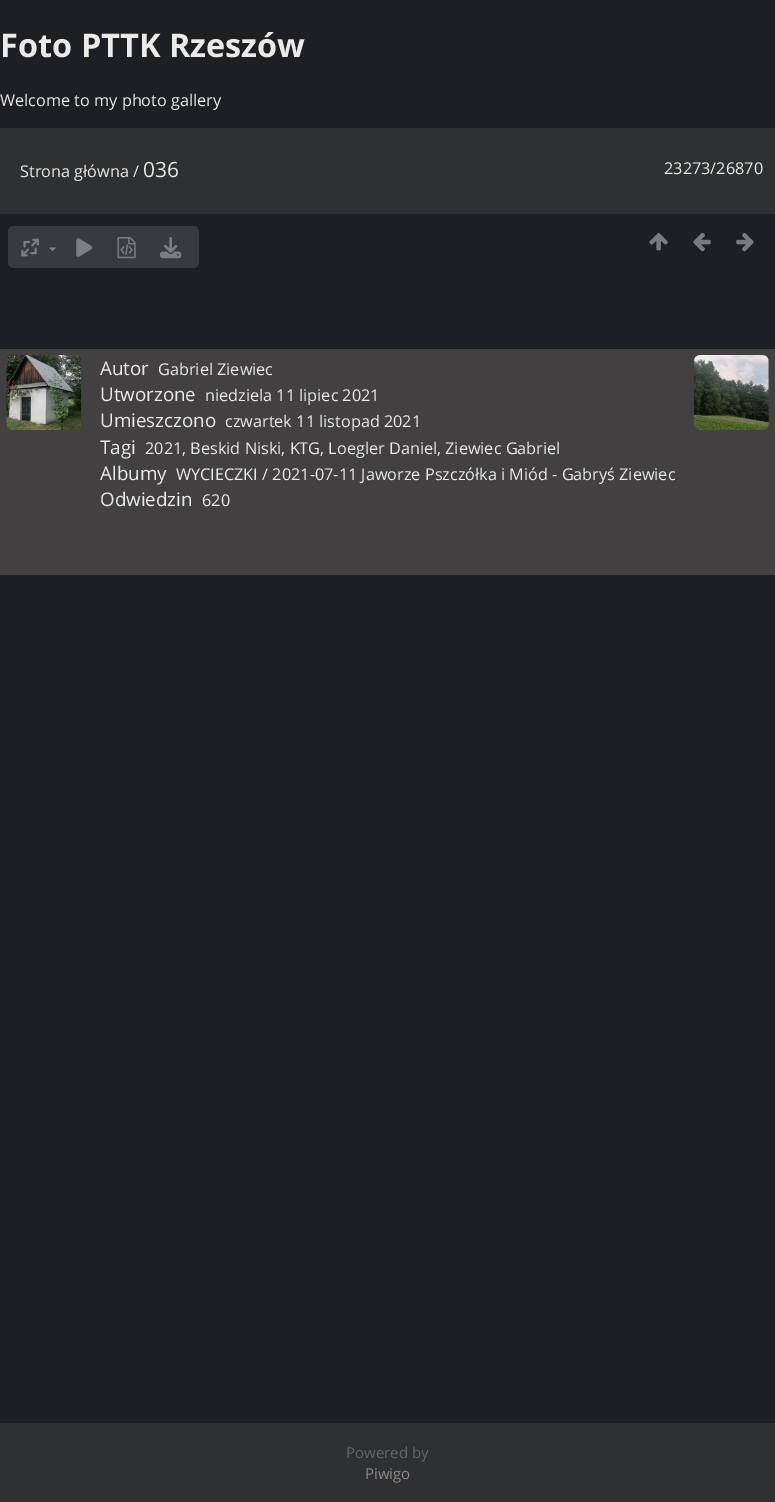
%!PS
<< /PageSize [775 1502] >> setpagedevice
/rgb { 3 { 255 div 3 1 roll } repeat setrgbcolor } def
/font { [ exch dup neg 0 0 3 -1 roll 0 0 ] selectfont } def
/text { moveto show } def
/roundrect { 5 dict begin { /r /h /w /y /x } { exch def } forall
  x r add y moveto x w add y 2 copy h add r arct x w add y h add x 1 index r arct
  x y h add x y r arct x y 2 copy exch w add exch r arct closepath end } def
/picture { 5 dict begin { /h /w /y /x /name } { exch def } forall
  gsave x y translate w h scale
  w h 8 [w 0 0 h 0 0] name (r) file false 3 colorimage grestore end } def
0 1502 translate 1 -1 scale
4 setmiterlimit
30 31 35 rgb
0 0 775 1502 rectfill
47 48 50 rgb
0 128 775 86 rectfill
57 58 61 rgb
8 226 191 42 6 roundrect fill
(img_01.rgb) 21 238 18 19 picture
132 133 136 rgb
49 247.5 moveto 7 0 rlineto -3.5 3.5 rlineto closepath fill
(img_02.rgb) 76 238 17 19 picture
(img_03.rgb) 117 236 19 23 picture
(img_04.rgb) 160 237 22 22 picture
(img_05.rgb) 649 233 19 18 picture
(img_06.rgb) 693 232 18 20 picture
(img_07.rgb) 736 232 18 20 picture
66 64 64 rgb
0 349 775 226 rectfill
(img_08.rgb) 6 355 76 75 picture
(img_09.rgb) 693 355 76 75 picture
47 48 50 rgb
0 1423 775 79 rectfill
/OpenSans-Bold 32.5 font
234 234 233 rgb
(Foto PTTK Rzeszów) 0 57 text
/OpenSans-Regular 16.25 font
(Welcome to my photo gallery) 0 106 text
(Strona główna /) 20 177 text
/OpenSans-Regular 21 font
(036) 143 177 text
/OpenSans-Regular 16.25 font
(23273/26870) 664 174 text
/OpenSans-Regular 18.75 font
(Autor) 100 375 text
/OpenSans-Regular 16.25 font
(Gabriel Ziewiec) 158 375 text
/OpenSans-Regular 18.75 font
(Utworzone) 100 401 text
/OpenSans-Regular 16.25 font
(niedziela 11 lipiec 2021) 205 401 text
/OpenSans-Regular 18.75 font
(Umieszczono) 100 427 text
/OpenSans-Regular 16.25 font
(czwartek 11 listopad 2021) 225 427 text
/OpenSans-Regular 18.75 font
(Tagi) 100 454 text
/OpenSans-Regular 16.25 font
(2021, Beskid Niski, KTG, Loegler Daniel, Ziewiec Gabriel) 145 454 text
/OpenSans-Regular 18.75 font
(Albumy) 100 480 text
/OpenSans-Regular 16.25 font
(WYCIECZKI / 2021-07-11 Jaworze Pszczółka i Miód - Gabryś Ziewiec) 176 480 text
/OpenSans-Regular 18.75 font
(Odwiedzin) 100 506 text
/OpenSans-Regular 16.25 font
(620) 202 506 text
/OpenSans-Regular 15 font
102 102 102 rgb
(Powered by) 346 1458 text
141 139 139 rgb
(Piwigo) 365 1479 text
showpage
